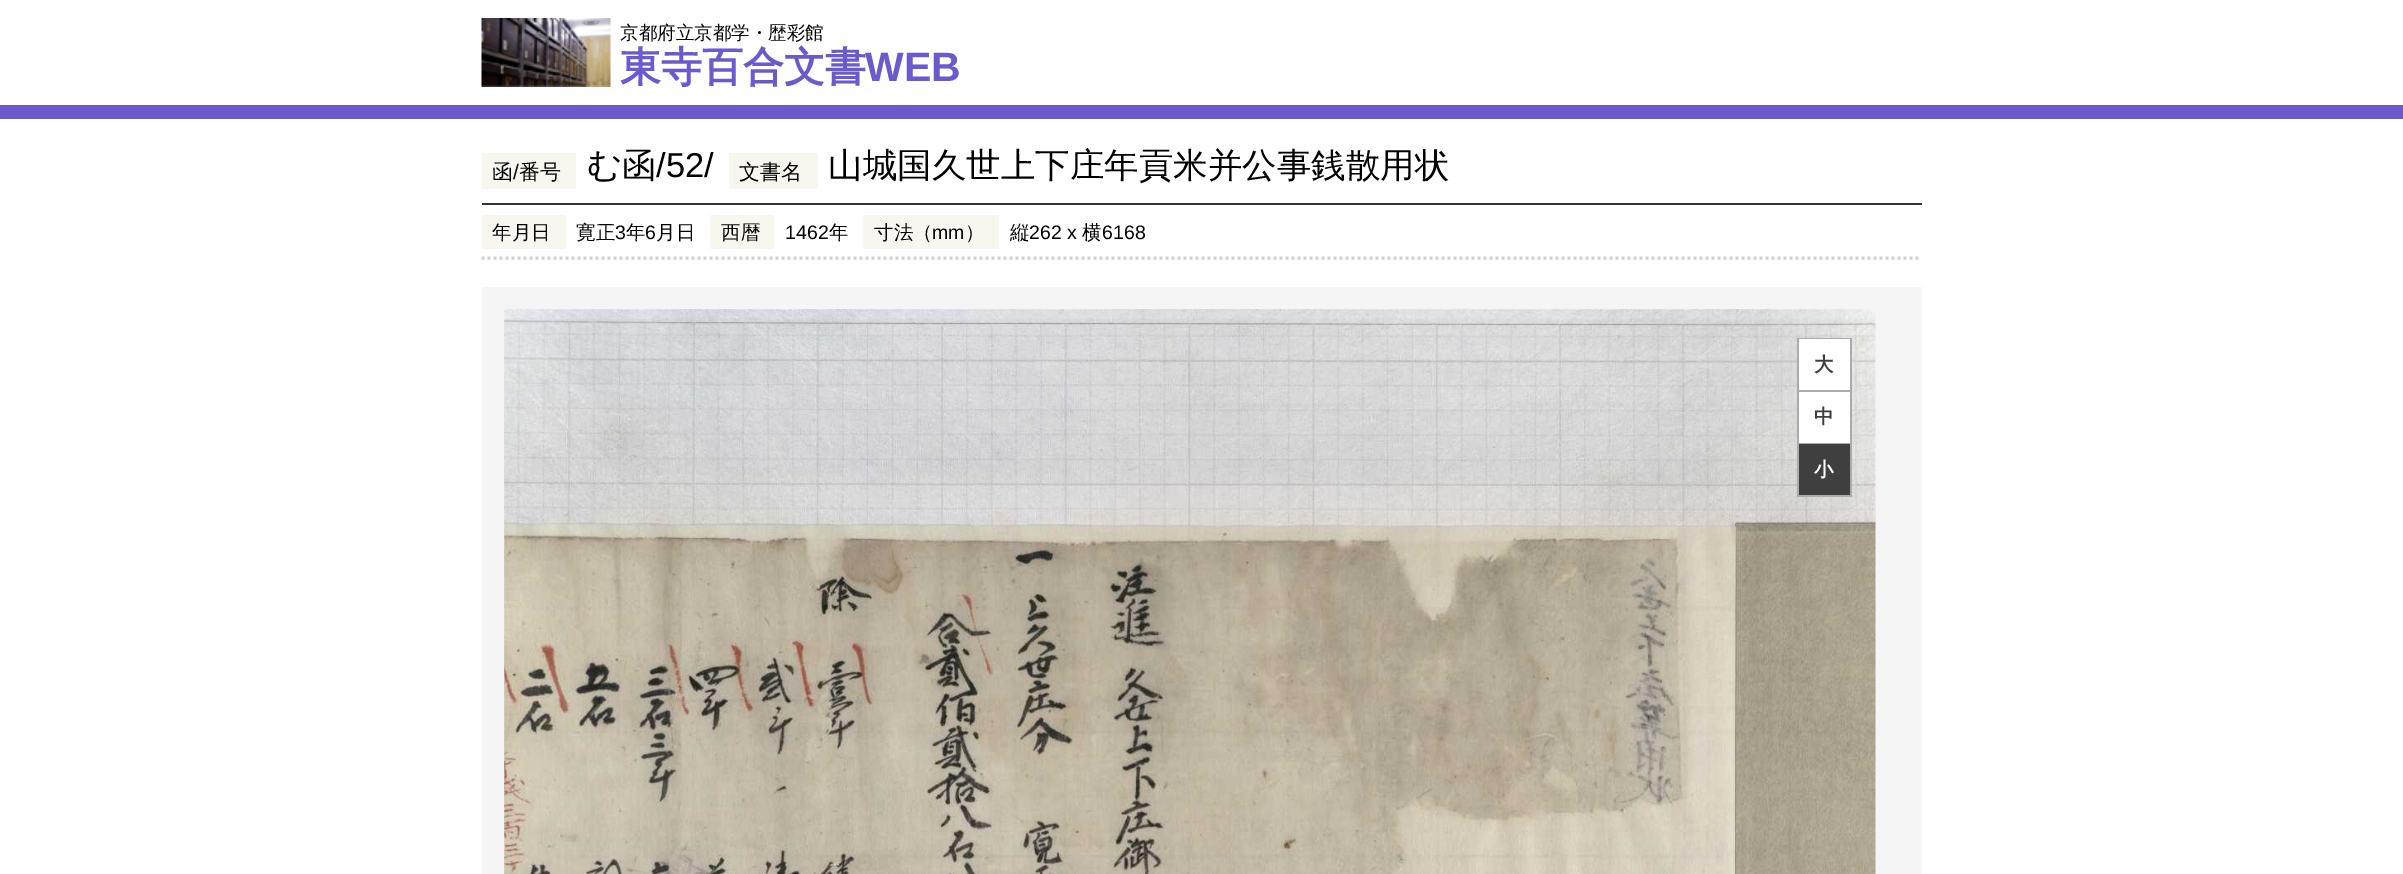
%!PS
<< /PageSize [2403 874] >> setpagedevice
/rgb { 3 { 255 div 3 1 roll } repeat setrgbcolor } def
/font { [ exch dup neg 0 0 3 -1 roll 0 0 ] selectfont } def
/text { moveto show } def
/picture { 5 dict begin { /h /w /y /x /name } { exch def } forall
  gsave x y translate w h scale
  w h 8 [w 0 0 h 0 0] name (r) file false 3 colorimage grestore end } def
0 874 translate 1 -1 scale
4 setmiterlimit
255 255 255 rgb
0 0 2403 874 rectfill
106 90 205 rgb
0 105 2403 14 rectfill
(img_01.rgb) 481 18 130 69 picture
210 210 210 rgb
3 setlinewidth
[3 3] 0 setdash
481.5 258 moveto 1440 0 rlineto stroke
52 52 52 rgb
482 203 1440 2 rectfill
247 247 239 rgb
482 153 94 36 rectfill
729 153 89 36 rectfill
482 215 84 34 rectfill
710 215 64 34 rectfill
863 215 136 34 rectfill
245 245 245 rgb
482 287 1440 587 rectfill
(img_02.rgb) 504 309 1372 565 picture
171 171 171 rgb
1797 338 54 1 rectfill
1850 338 2 159 rectfill
1797 338 2 159 rectfill
1799 390 51 2 rectfill
255 255 255 rgb
1799 339 51 51 rectfill
171 171 171 rgb
1799 443 51 1 rectfill
255 255 255 rgb
1799 392 51 51 rectfill
171 171 171 rgb
1799 495 51 2 rectfill
63 63 63 rgb
1799 444 51 51 rectfill
/WenQuanYiZenHei-Medium 18.5 font
0 0 0 rgb
(京都府立京都学・歴彩館) 620 39 text
/WenQuanYiZenHei-Bold 41 font
106 90 205 rgb
(東寺百合文書) 620 81 text
/LiberationSans-Bold 41 font
(WEB) 865 81 text
/WenQuanYiZenHei-Medium 21 font
0 0 0 rgb
(函) 492 179 text
/LiberationSans-Regular 21 font
(/) 513 179 text
/WenQuanYiZenHei-Medium 21 font
(番号) 519 179 text
/WenQuanYiZenHei-Medium 34.5 font
(む函) 587 177 text
/LiberationSans-Regular 34.5 font
(/52/) 656 177 text
/WenQuanYiZenHei-Medium 21 font
(文書名) 739 179 text
/WenQuanYiZenHei-Medium 34.5 font
(山城国久世上下庄年貢米并公事銭散用状) 828 177 text
/WenQuanYiZenHei-Medium 19.5 font
(年月日) 492 239 text
(寛正) 576 239 text
/LiberationSans-Regular 19.5 font
(3) 615 239 text
/WenQuanYiZenHei-Medium 19.5 font
(年) 626 239 text
/LiberationSans-Regular 19.5 font
(6) 645 239 text
/WenQuanYiZenHei-Medium 19.5 font
(月日) 656 239 text
(西暦) 721 239 text
/LiberationSans-Regular 19.5 font
(1462) 785 239 text
/WenQuanYiZenHei-Medium 19.5 font
(年) 829 239 text
(寸法（) 874 239 text
/LiberationSans-Regular 19.5 font
(mm) 932 239 text
/WenQuanYiZenHei-Medium 19.5 font
(）) 965 239 text
(縦) 1010 239 text
/LiberationSans-Regular 19.5 font
(262 x) 1029 239 text
/WenQuanYiZenHei-Medium 19.5 font
(横) 1082 239 text
/LiberationSans-Regular 19.5 font
(6168) 1102 239 text
/WenQuanYiZenHei-Bold 19.5 font
63 63 63 rgb
(大) 1814 371 text
(中) 1814 423 text
255 255 255 rgb
(小) 1814 476 text
showpage
